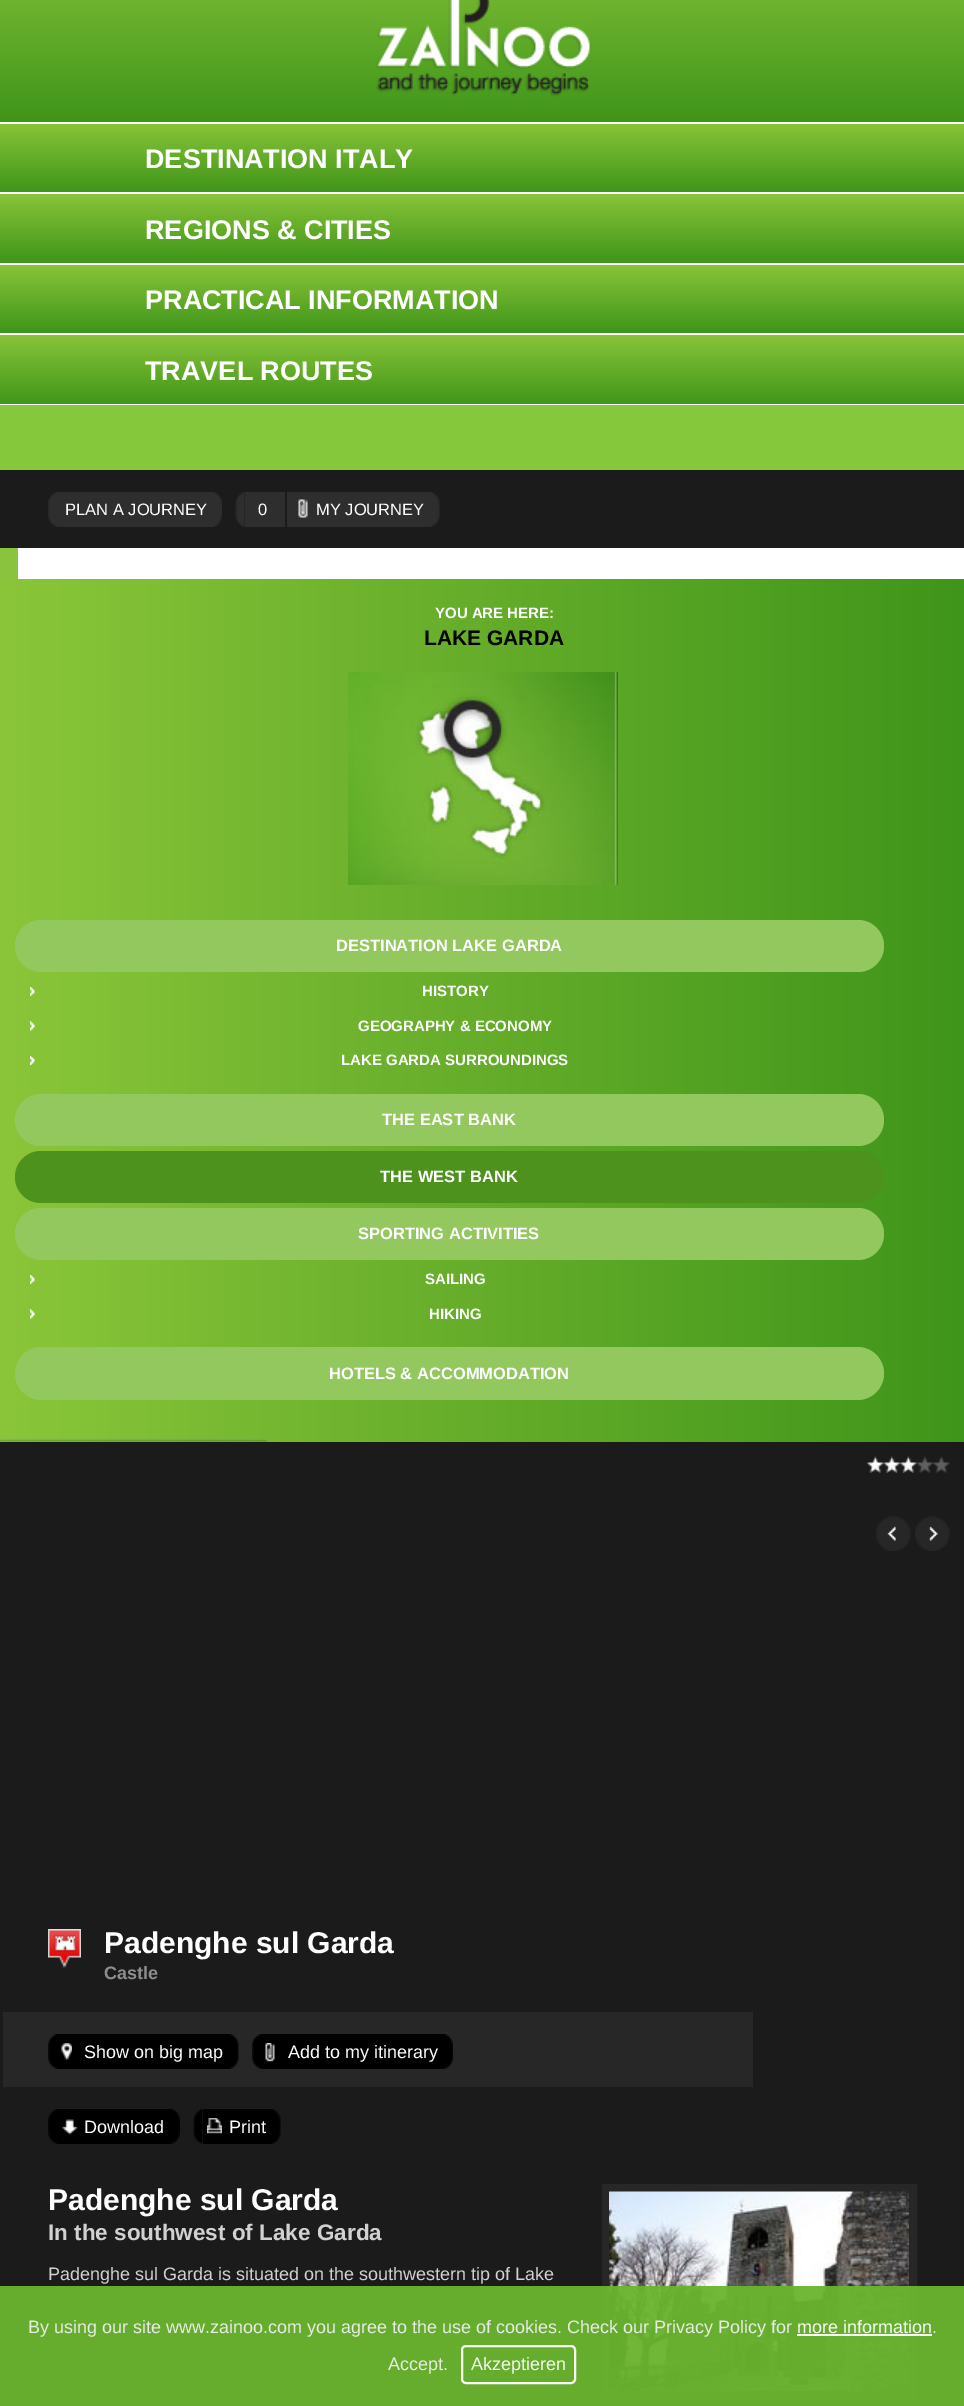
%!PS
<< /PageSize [964 2406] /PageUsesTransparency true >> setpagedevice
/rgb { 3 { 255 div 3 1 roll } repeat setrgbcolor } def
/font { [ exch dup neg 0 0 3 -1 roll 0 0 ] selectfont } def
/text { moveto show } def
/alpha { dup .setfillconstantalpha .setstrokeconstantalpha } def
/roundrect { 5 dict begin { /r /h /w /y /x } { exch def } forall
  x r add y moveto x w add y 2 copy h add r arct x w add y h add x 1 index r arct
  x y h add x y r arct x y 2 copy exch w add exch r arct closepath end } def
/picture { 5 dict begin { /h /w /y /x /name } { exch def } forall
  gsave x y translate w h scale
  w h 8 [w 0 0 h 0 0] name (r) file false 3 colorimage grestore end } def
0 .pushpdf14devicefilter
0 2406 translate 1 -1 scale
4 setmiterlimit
255 255 255 rgb
0 0 964 2406 rectfill
138 195 62 rgb
0 548 18 31 rectfill
gsave 0 0 moveto 964 0 rlineto 0 122 rlineto -964 0 rlineto closepath clip newpath
<< /ShadingType 2 /ColorSpace /DeviceRGB /Coords [482 -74 482 122] /Extend [true true] /Function << /FunctionType 3 /Domain [0 1] /Functions [<< /FunctionType 2 /Domain [0 1] /C0 [0.541 0.773 0.224] /C1 [0.541 0.773 0.224] /N 1 >> << /FunctionType 2 /Domain [0 1] /C0 [0.541 0.773 0.224] /C1 [0.247 0.584 0.102] /N 1 >>] /Bounds [0.01] /Encode [0 1 0 1] >> >> shfill grestore
(img_01.rgb) 376 0 214 97 picture
gsave 0 124 moveto 964 0 rlineto 0 68 rlineto -964 0 rlineto closepath clip newpath
<< /ShadingType 2 /ColorSpace /DeviceRGB /Coords [482 121 482 192] /Extend [true true] /Function << /FunctionType 3 /Domain [0 1] /Functions [<< /FunctionType 2 /Domain [0 1] /C0 [0.541 0.773 0.224] /C1 [0.541 0.773 0.224] /N 1 >> << /FunctionType 2 /Domain [0 1] /C0 [0.541 0.773 0.224] /C1 [0.247 0.584 0.102] /N 1 >>] /Bounds [0.01] /Encode [0 1 0 1] >> >> shfill grestore
gsave 0 194 moveto 964 0 rlineto 0 69 rlineto -964 0 rlineto closepath clip newpath
<< /ShadingType 2 /ColorSpace /DeviceRGB /Coords [482 192 482 263] /Extend [true true] /Function << /FunctionType 3 /Domain [0 1] /Functions [<< /FunctionType 2 /Domain [0 1] /C0 [0.541 0.773 0.224] /C1 [0.541 0.773 0.224] /N 1 >> << /FunctionType 2 /Domain [0 1] /C0 [0.541 0.773 0.224] /C1 [0.247 0.584 0.102] /N 1 >>] /Bounds [0.01] /Encode [0 1 0 1] >> >> shfill grestore
gsave 0 265 moveto 964 0 rlineto 0 68 rlineto -964 0 rlineto closepath clip newpath
<< /ShadingType 2 /ColorSpace /DeviceRGB /Coords [482 262 482 333] /Extend [true true] /Function << /FunctionType 3 /Domain [0 1] /Functions [<< /FunctionType 2 /Domain [0 1] /C0 [0.541 0.773 0.224] /C1 [0.541 0.773 0.224] /N 1 >> << /FunctionType 2 /Domain [0 1] /C0 [0.541 0.773 0.224] /C1 [0.247 0.584 0.102] /N 1 >>] /Bounds [0.01] /Encode [0 1 0 1] >> >> shfill grestore
gsave 0 335 moveto 964 0 rlineto 0 69 rlineto -964 0 rlineto closepath clip newpath
<< /ShadingType 2 /ColorSpace /DeviceRGB /Coords [482 333 482 405] /Extend [true true] /Function << /FunctionType 3 /Domain [0 1] /Functions [<< /FunctionType 2 /Domain [0 1] /C0 [0.541 0.773 0.224] /C1 [0.541 0.773 0.224] /N 1 >> << /FunctionType 2 /Domain [0 1] /C0 [0.541 0.773 0.224] /C1 [0.247 0.584 0.102] /N 1 >>] /Bounds [0.01] /Encode [0 1 0 1] >> >> shfill grestore
133 200 59 rgb
0 405 964 65 rectfill
28 27 27 rgb
0 470 964 78 rectfill
47 46 46 rgb
57 492 156 35 rectfill
(img_02.rgb) 48 492 9 35 picture
(img_03.rgb) 213 492 9 35 picture
245 492 186 35 rectfill
(img_04.rgb) 298 499 10 19 picture
(img_05.rgb) 235 492 10 35 picture
28 27 27 rgb
285 492 2 35 rectfill
(img_06.rgb) 431 492 9 35 picture
gsave 0 579 moveto 964 0 rlineto 0 863 rlineto -964 0 rlineto closepath clip newpath
<< /ShadingType 2 /ColorSpace /DeviceRGB /Coords [0 1010 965 1010] /Extend [true true] /Function << /FunctionType 3 /Domain [0 1] /Functions [<< /FunctionType 2 /Domain [0 1] /C0 [0.541 0.773 0.224] /C1 [0.541 0.773 0.224] /N 1 >> << /FunctionType 2 /Domain [0 1] /C0 [0.541 0.773 0.224] /C1 [0.247 0.584 0.102] /N 1 >>] /Bounds [0.01] /Encode [0 1 0 1] >> >> shfill grestore
(img_07.rgb) 348 672 270 213 picture
(img_08.rgb) 0 1438 267 4 picture
147 200 95 rgb
15 920 869 52 26 roundrect fill
(img_09.rgb) 30 987 5 9 picture
(img_10.rgb) 30 1021 5 10 picture
(img_09.rgb) 30 1056 5 9 picture
15 1094 869 52 26 roundrect fill
77 146 29 rgb
15 1151 869 52 26 roundrect fill
147 200 95 rgb
15 1208 869 52 26 roundrect fill
(img_09.rgb) 30 1275 5 9 picture
(img_10.rgb) 30 1309 5 10 picture
15 1347 869 53 26.5 roundrect fill
28 27 27 rgb
0 1442 964 964 rectfill
(img_11.rgb) 867 1456 17 17 picture
(img_12.rgb) 883 1456 17 17 picture
(img_11.rgb) 900 1456 17 17 picture
(img_13.rgb) 916 1456 17 17 picture
(img_14.rgb) 933 1456 17 17 picture
(img_15.rgb) 876 1516 35 35 picture
(img_16.rgb) 915 1516 35 35 picture
(img_17.rgb) 48 1929 33 39 picture
40 39 39 rgb
3 2012 750 75 rectfill
0 0 0 rgb
57 2034 173 35 rectfill
(img_18.rgb) 61 2043 11 17 picture
(img_19.rgb) 48 2034 9 35 picture
(img_20.rgb) 230 2034 9 35 picture
261 2034 183 35 rectfill
(img_21.rgb) 265 2043 10 19 picture
(img_19.rgb) 252 2034 9 35 picture
(img_22.rgb) 444 2034 9 35 picture
57 2109 114 35 rectfill
(img_23.rgb) 61 2119 17 16 picture
(img_24.rgb) 48 2109 9 35 picture
(img_25.rgb) 171 2109 9 35 picture
203 2109 69 35 rectfill
(img_26.rgb) 207 2118 15 16 picture
(img_27.rgb) 193 2109 10 35 picture
(img_28.rgb) 272 2109 9 35 picture
40 39 39 rgb
8 setlinewidth
606 2188 307 207 rectstroke
(img_29.rgb) 609 2191 300 200 picture
0.95 alpha
106 180 46 rgb
0 2286 964 120 rectfill
255 255 255 rgb
797 2334 135 2 rectfill
2 setlinewidth
462 2346 113 37 4 roundrect stroke
/LiberationSans-Bold 27 font
1 alpha
(DESTINATION ITALY) 145 168 text
(REGIONS & CITIES) 145 239 text
(PRACTICAL INFORMATION) 145 309 text
(TRAVEL ROUTES) 145 380 text
/LiberationSans-Regular 16.5 font
(PLAN A JOURNEY) 65 515 text
(0) 258 515 text
(MY JOURNEY) 316 515 text
/LiberationSans-Bold 15 font
(YOU ARE HERE:) 435 618 text
/LiberationSans-Bold 21 font
0 0 0 rgb
(LAKE GARDA) 424 645 text
/LiberationSans-Bold 16.5 font
255 255 255 rgb
(DESTINATION LAKE GARDA) 336 951 text
/LiberationSans-Bold 15 font
(HISTORY) 422 996 text
(GEOGRAPHY & ECONOMY) 358 1031 text
(LAKE GARDA SURROUNDINGS) 341 1065 text
/LiberationSans-Bold 16.5 font
(THE EAST BANK) 382 1125 text
(THE WEST BANK) 380 1182 text
(SPORTING ACTIVITIES) 358 1239 text
/LiberationSans-Bold 15 font
(SAILING) 425 1284 text
(HIKING) 429 1319 text
/LiberationSans-Bold 16.5 font
(HOTELS & ACCOMMODATION) 329 1379 text
/LiberationSans-Bold 30 font
(Padenghe sul Garda) 104 1953 text
/LiberationSans-Bold 18 font
142 141 141 rgb
(Castle) 104 1979 text
/LiberationSans-Regular 18 font
255 255 255 rgb
(Show on big map) 84 2058 text
(Add to my itinerary) 288 2058 text
(Download) 84 2133 text
(Print) 229 2133 text
/LiberationSans-Bold 30 font
(Padenghe sul Garda) 48 2210 text
/LiberationSans-Bold 22.5 font
210 209 209 rgb
(In the southwest of Lake Garda) 48 2240 text
/LiberationSans-Regular 18 font
(Padenghe sul Garda is situated on the southwestern tip of Lake) 48 2280 text
231 235 228 rgb
(By using our site www.zainoo.com you agree to the use of cookies. Check our Privacy Policy for) 28 2333 text
247 251 245 rgb
(more information) 797 2333 text
228 227 227 rgb
(.) 932 2333 text
231 235 228 rgb
(Accept.) 388 2370 text
247 251 245 rgb
(Akzeptieren) 471 2370 text
.poppdf14devicefilter showpage
